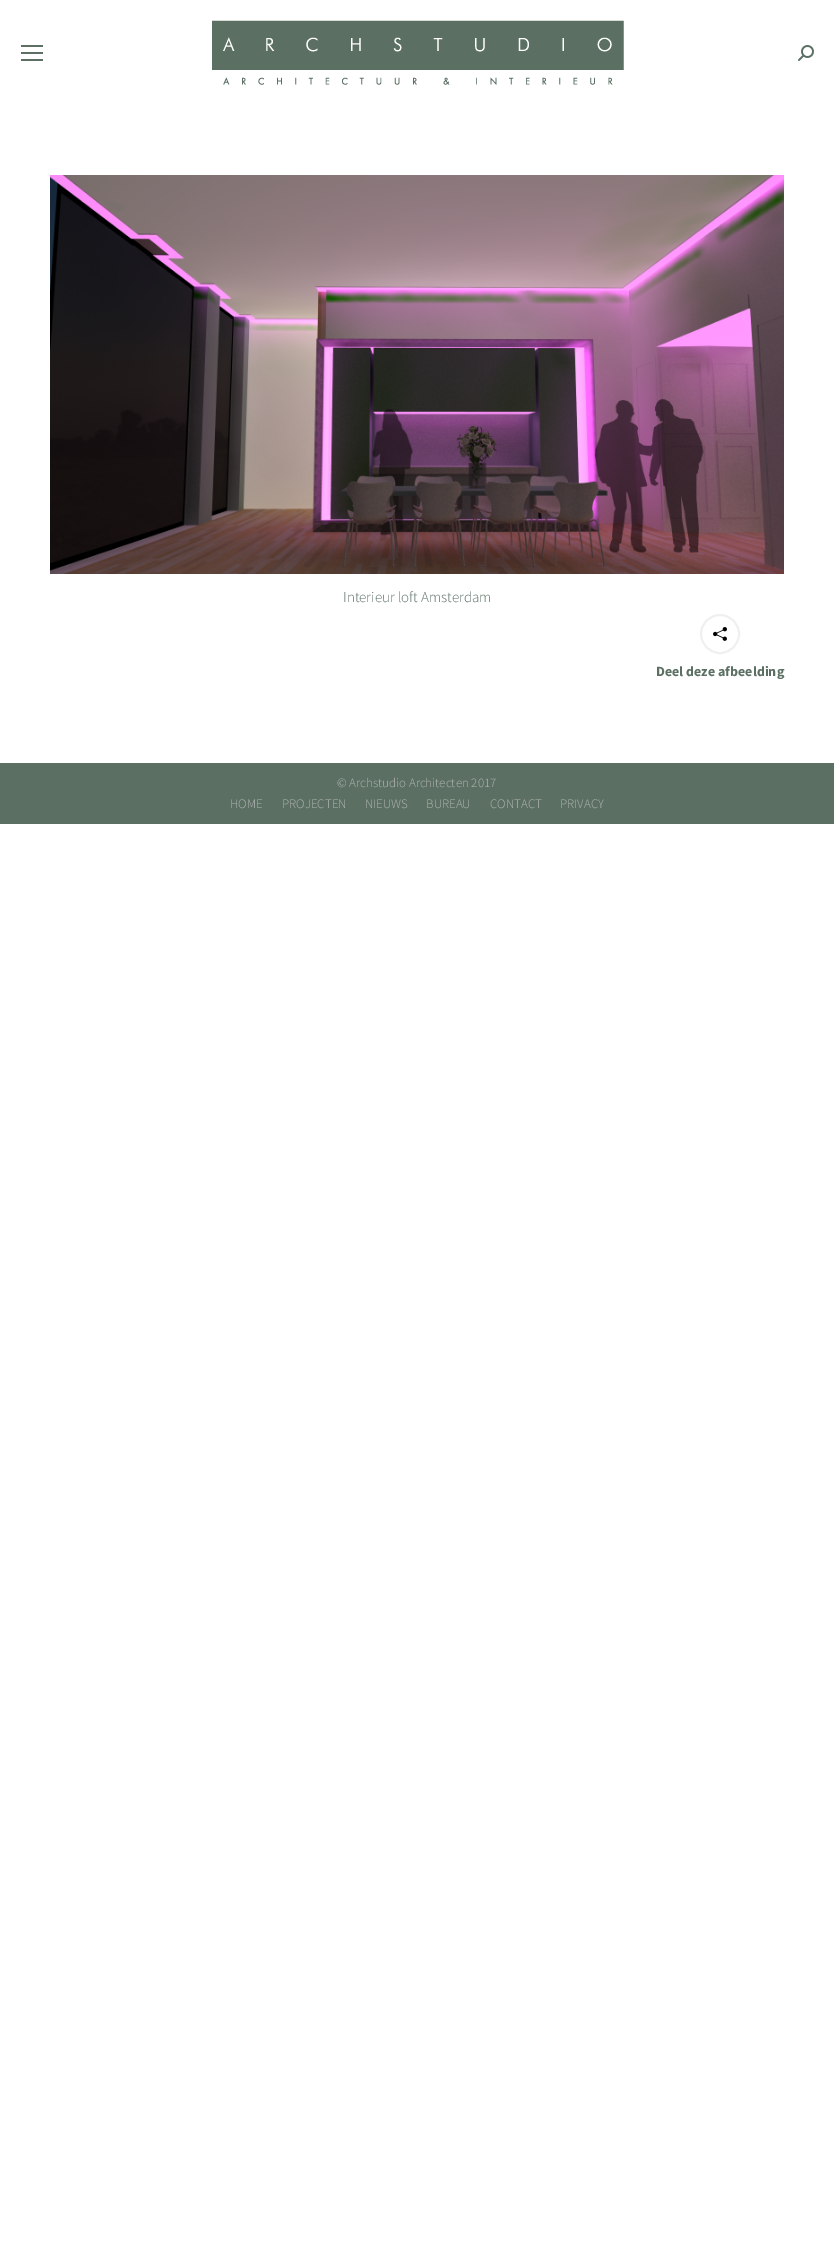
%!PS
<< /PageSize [834 2249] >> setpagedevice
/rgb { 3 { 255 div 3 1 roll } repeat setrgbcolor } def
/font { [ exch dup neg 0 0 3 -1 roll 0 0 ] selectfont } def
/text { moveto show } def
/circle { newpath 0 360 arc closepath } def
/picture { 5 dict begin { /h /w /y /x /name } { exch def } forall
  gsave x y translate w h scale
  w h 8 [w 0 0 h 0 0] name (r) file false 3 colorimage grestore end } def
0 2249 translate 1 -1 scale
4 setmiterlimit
255 255 255 rgb
0 0 834 2249 rectfill
91 112 99 rgb
21 45 22 2 rectfill
21 52 22 2 rectfill
21 59 22 2 rectfill
(img_01.rgb) 212 20 412 65 picture
(img_02.rgb) 798 45 16 16 picture
(img_03.rgb) 50 175 734 399 picture
239 241 239 rgb
2 setlinewidth
720 634 19 circle stroke
(img_04.rgb) 713 627 14 14 picture
91 112 99 rgb
0 763 834 61 rectfill
/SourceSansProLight-Light 15 font
(Interieur loft Amsterdam) 343 602 text
/SourceSansPro-Bold 14 font
(Deel deze afbeelding) 656 676 text
/SourceSansProLight-Light 13 font
179 181 182 rgb
(© Archstudio Architecten 2017) 337 787 text
(HOME) 230 808 text
(PROJECTEN) 282 808 text
(NIEUWS) 365 808 text
(BUREAU) 426 808 text
(CONTACT) 490 808 text
(PRIVACY) 560 808 text
showpage
